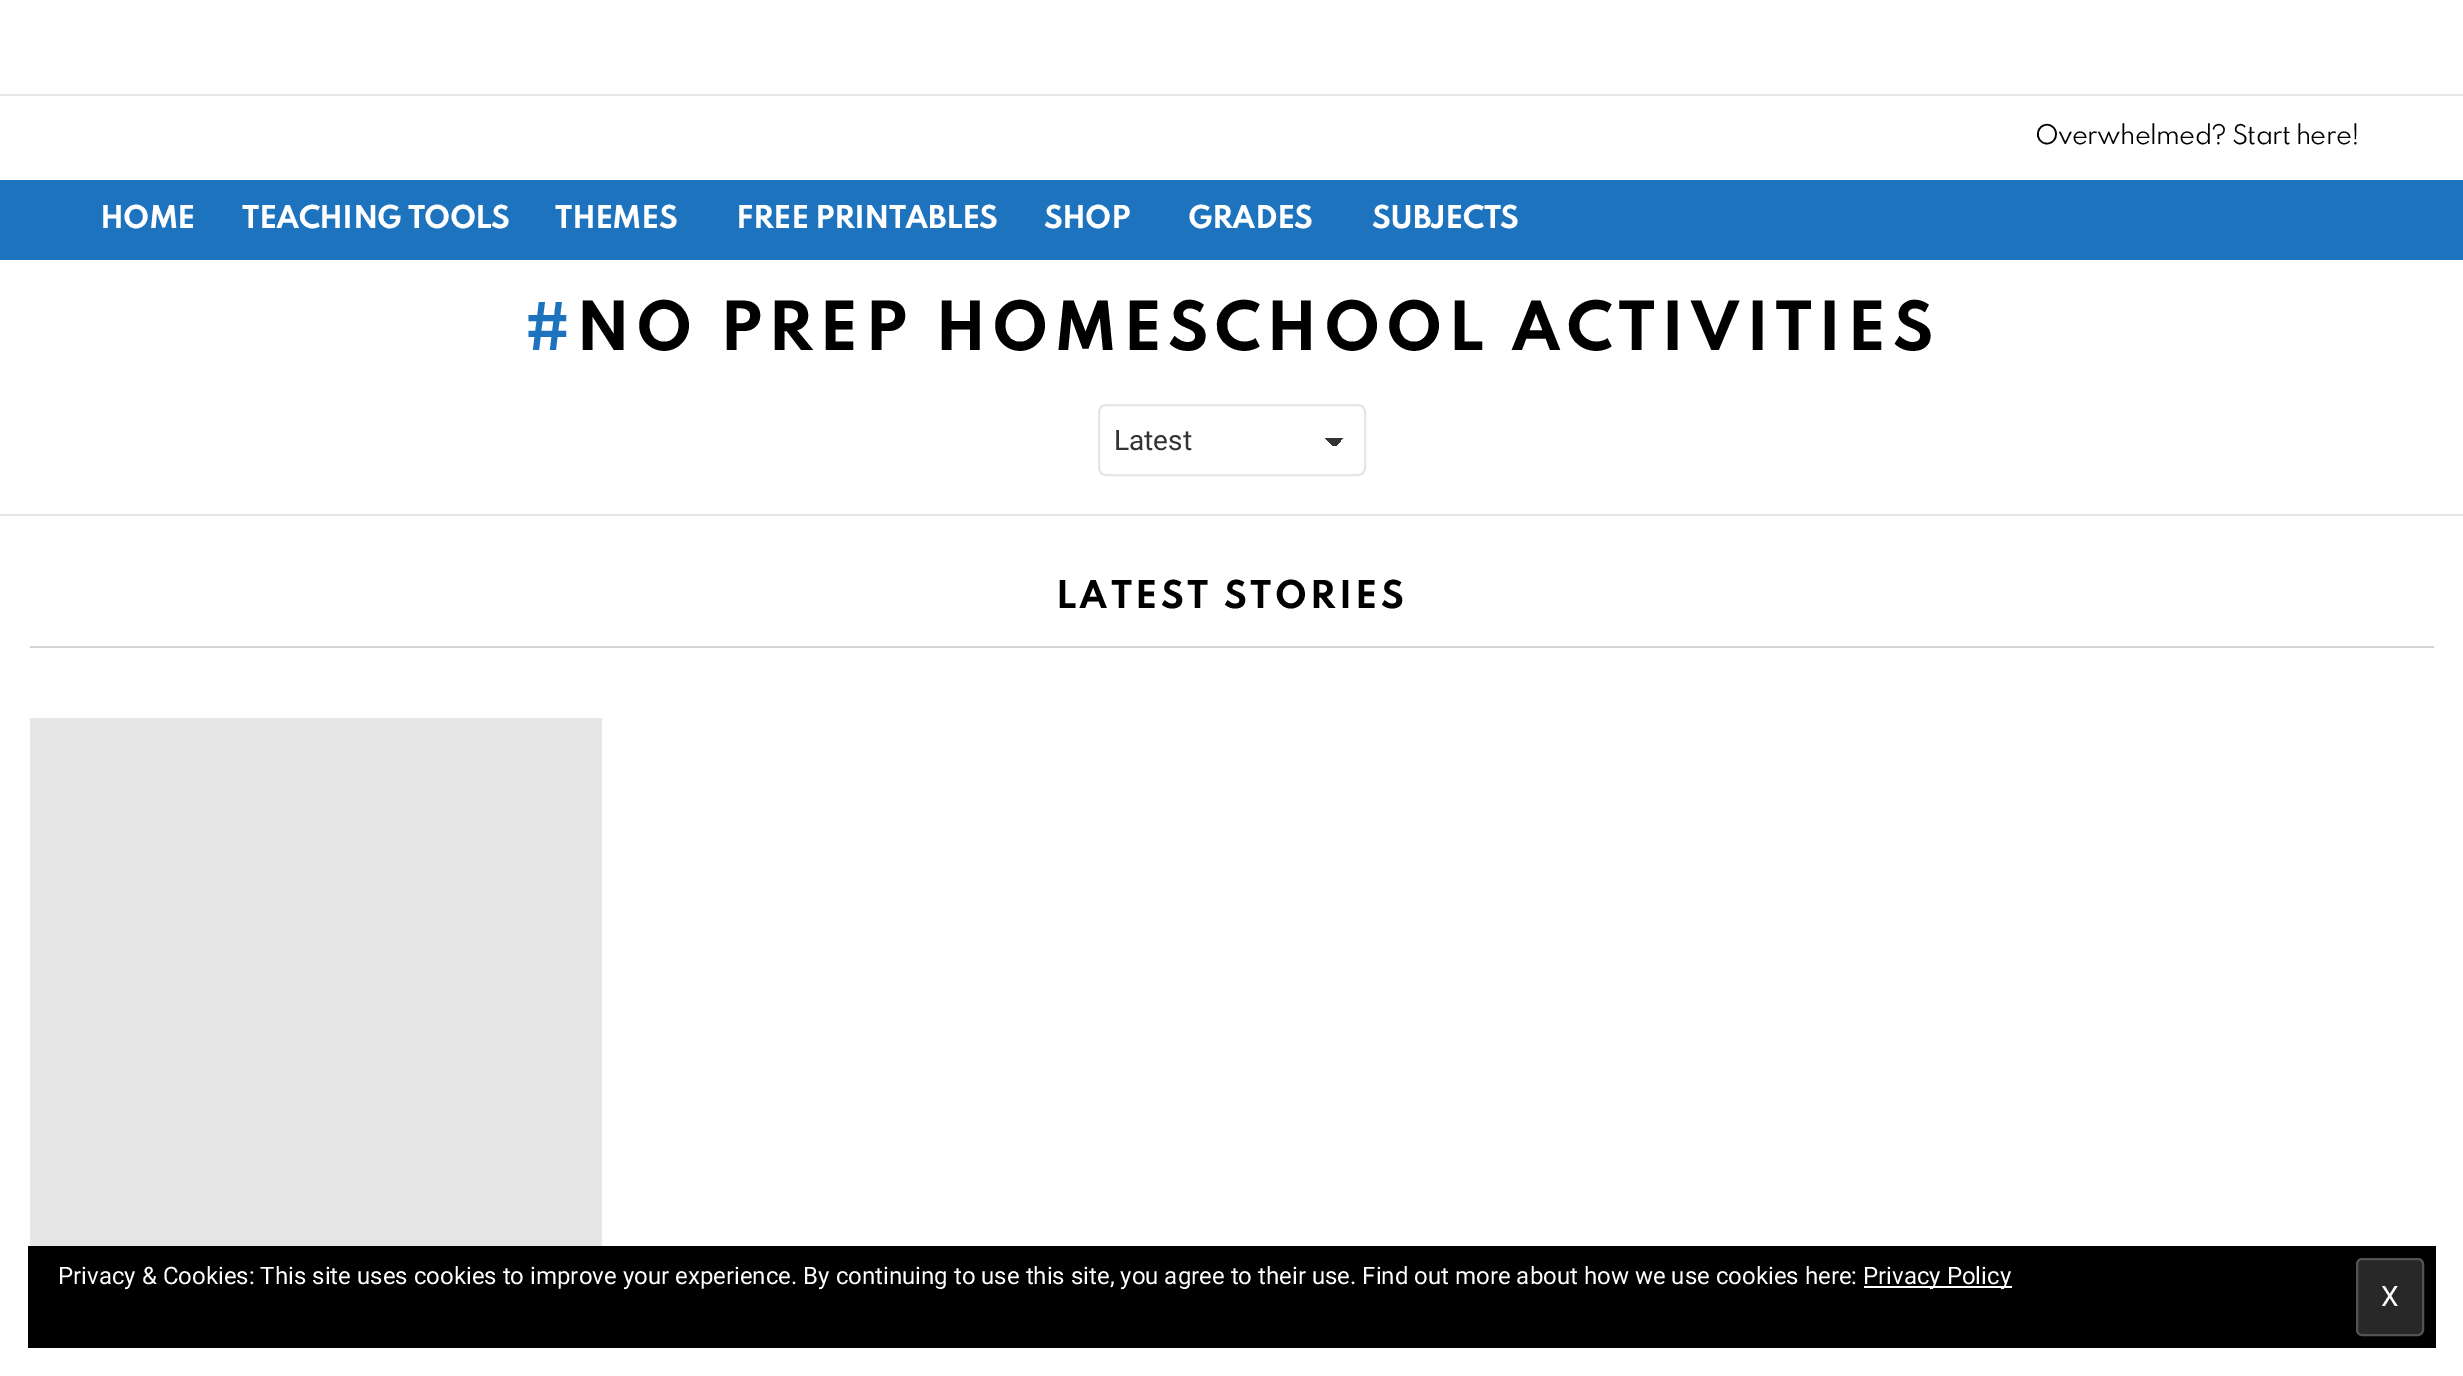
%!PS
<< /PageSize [2463 1376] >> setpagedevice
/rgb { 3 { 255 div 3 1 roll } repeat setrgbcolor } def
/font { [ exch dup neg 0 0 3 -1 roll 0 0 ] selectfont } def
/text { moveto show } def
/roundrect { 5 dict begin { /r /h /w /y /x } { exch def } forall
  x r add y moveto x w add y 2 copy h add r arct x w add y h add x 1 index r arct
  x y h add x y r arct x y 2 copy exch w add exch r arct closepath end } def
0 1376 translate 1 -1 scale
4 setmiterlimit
255 255 255 rgb
0 0 2463 1376 rectfill
230 230 230 rgb
0 94 2463 2 rectfill
30 115 190 rgb
0 180 2463 80 rectfill
gsave 1334 438 moveto 10 0 rlineto 0 8 rlineto -10 0 rlineto closepath clip newpath
<< /ShadingType 2 /ColorSpace /DeviceRGB /Coords [1335 438 1344 447] /Extend [true true] /Function << /FunctionType 3 /Domain [0 1] /Functions [<< /FunctionType 2 /Domain [0 1] /C0 [0.2 0.2 0.2] /C1 [0.2 0.2 0.2] /N 1 >> << /FunctionType 2 /Domain [0 1] /C0 [1 1 1] /C1 [1 1 1] /N 1 >>] /Bounds [0.5] /Encode [0 1 0 1] >> >> shfill grestore
gsave 1324 438 moveto 10 0 rlineto 0 8 rlineto -10 0 rlineto closepath clip newpath
<< /ShadingType 2 /ColorSpace /DeviceRGB /Coords [1325 447 1334 438] /Extend [true true] /Function << /FunctionType 3 /Domain [0 1] /Functions [<< /FunctionType 2 /Domain [0 1] /C0 [1 1 1] /C1 [1 1 1] /N 1 >> << /FunctionType 2 /Domain [0 1] /C0 [0.2 0.2 0.2] /C1 [0.2 0.2 0.2] /N 1 >>] /Bounds [0.5] /Encode [0 1 0 1] >> >> shfill grestore
230 230 230 rgb
2 setlinewidth
1099 405 266 70 7 roundrect stroke
0 514 2463 2 rectfill
212 212 212 rgb
30 646 2404 2 rectfill
230 230 230 rgb
30 718 572 528 rectfill
0 0 0 rgb
28 1246 2408 102 rectfill
255 255 255 rgb
1864 1286 148 2 rectfill
40 40 40 rgb
2357 1259 66 76 5 roundrect gsave fill grestore
83 83 83 rgb
stroke
/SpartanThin-Regular 24 font
0 0 0 rgb
2035 144 moveto -0.75 0 (Overwhelmed? Start here!) ashow
/SpartanThin-Bold 28 font
255 255 255 rgb
100 228 moveto -0.8 0 (HOME) ashow
242 228 moveto -0.8 0 (TEACHING TOOLS) ashow
555 228 moveto -0.8 0 (THEMES) ashow
736 228 moveto -0.8 0 (FREE PRINTABLES) ashow
1044 228 moveto -0.8 0 (SHOP) ashow
1188 228 moveto -0.8 0 (GRADES) ashow
1372 228 moveto -0.8 0 (SUBJECTS) ashow
/SpartanThin-Bold 60 font
30 115 190 rgb
524 350 moveto 5.8 0 (#) ashow
0 0 0 rgb
576 350 moveto 5.8 0 (NO PREP HOMESCHOOL ACTIVITIES) ashow
/Roboto-Regular 28 font
51 51 51 rgb
(Latest) 1114 450 text
/SpartanThin-Bold 34 font
0 0 0 rgb
1056 608 moveto 3.25 0 (LATEST STORIES) ashow
/Roboto-Regular 24 font
255 255 255 rgb
(Privacy & Cookies: This site uses cookies to improve your experience. By continuing to use this site, you agree to their use. Find out more about how we use cookies here:) 58 1284 text
(Privacy Policy) 1863 1284 text
/Roboto-Regular 28 font
2381 1306 moveto -0.8 0 (X) ashow
showpage
